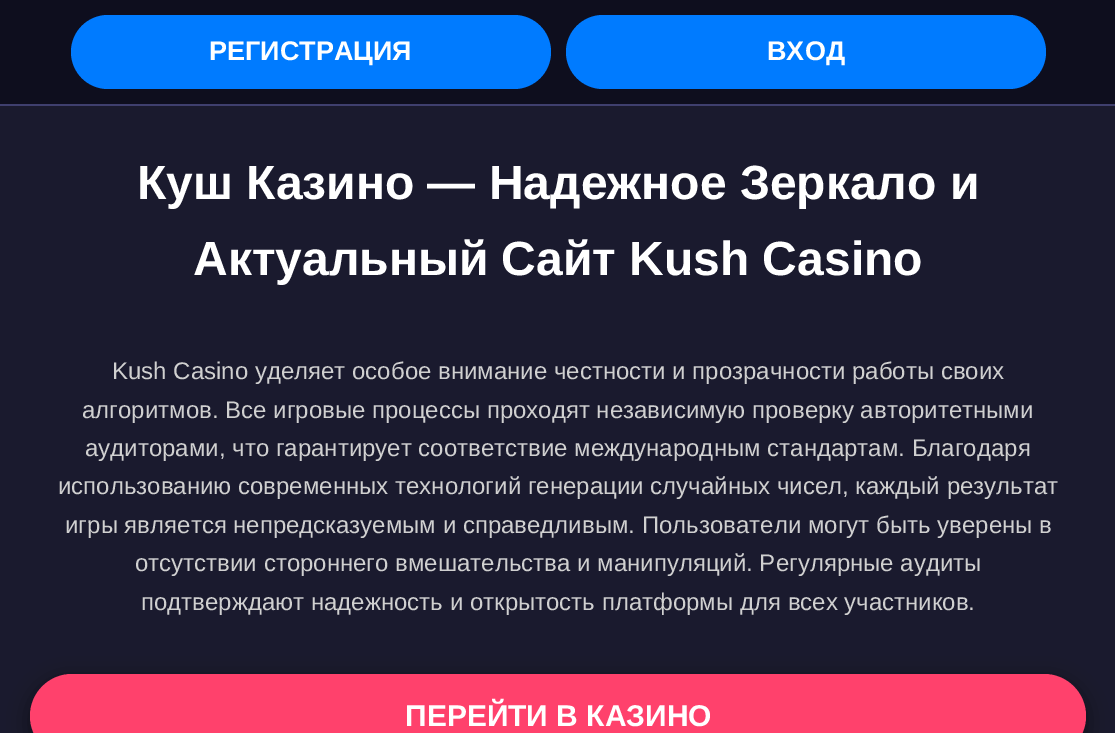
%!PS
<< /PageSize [1115 733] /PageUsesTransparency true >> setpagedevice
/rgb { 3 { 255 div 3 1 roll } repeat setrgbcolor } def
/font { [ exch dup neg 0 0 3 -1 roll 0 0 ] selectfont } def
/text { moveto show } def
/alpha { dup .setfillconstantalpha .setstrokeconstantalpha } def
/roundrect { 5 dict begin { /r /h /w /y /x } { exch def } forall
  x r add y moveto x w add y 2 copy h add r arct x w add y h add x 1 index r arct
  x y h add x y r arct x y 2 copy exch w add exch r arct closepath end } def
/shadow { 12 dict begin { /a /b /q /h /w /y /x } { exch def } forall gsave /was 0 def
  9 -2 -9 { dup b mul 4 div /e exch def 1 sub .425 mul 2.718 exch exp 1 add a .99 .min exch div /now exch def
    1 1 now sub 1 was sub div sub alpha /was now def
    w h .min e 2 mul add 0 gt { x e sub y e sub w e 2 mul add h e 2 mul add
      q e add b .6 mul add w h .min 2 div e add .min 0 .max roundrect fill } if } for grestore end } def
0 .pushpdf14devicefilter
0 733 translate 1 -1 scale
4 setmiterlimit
26 26 46 rgb
0 0 1115 733 rectfill
14 14 30 rgb
0 0 1115 104 rectfill
63 63 110 rgb
0 104 1115 2 rectfill
0 123 255 rgb
71 15 480 74 37 roundrect fill
566 15 480 74 37 roundrect fill
0 0 0 rgb
30 680 1056 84 42 11 0.4 shadow
255 65 108 rgb
30 674 1056 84 42 roundrect fill
/LiberationSans-Bold 27 font
255 255 255 rgb
(РЕГИСТРАЦИЯ) 209 60 text
(ВХОД) 767 60 text
/LiberationSans-Bold 48 font
(Куш Казино — Надежное Зеркало и) 137 199 text
(Актуальный Сайт Kush Casino) 193 275 text
/LiberationSans-Regular 24 font
208 208 208 rgb
(Kush Casino уделяет особое внимание честности и прозрачности работы своих) 112 379 text
(алгоритмов. Все игровые процессы проходят независимую проверку авторитетными) 82 418 text
(аудиторами, что гарантирует соответствие международным стандартам. Благодаря) 85 456 text
(использованию современных технологий генерации случайных чисел, каждый результат) 58 494 text
(игры является непредсказуемым и справедливым. Пользователи могут быть уверены в) 65 533 text
(отсутствии стороннего вмешательства и манипуляций. Регулярные аудиты) 135 571 text
(подтверждают надежность и открытость платформы для всех участников.) 141 610 text
/LiberationSans-Bold 30 font
255 255 255 rgb
(ПЕРЕЙТИ В КАЗИНО) 405 726 text
.poppdf14devicefilter showpage
